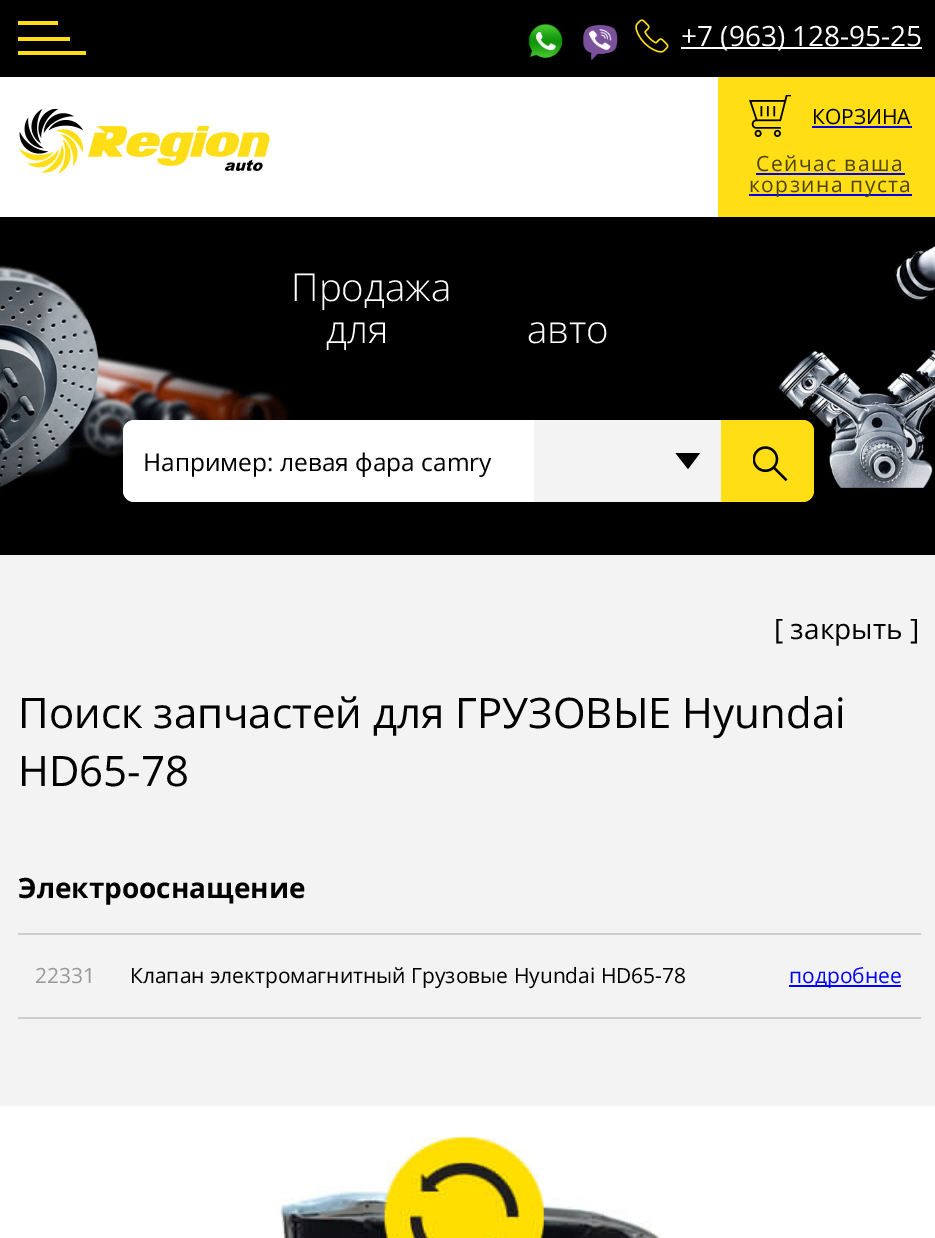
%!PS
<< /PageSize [935 1238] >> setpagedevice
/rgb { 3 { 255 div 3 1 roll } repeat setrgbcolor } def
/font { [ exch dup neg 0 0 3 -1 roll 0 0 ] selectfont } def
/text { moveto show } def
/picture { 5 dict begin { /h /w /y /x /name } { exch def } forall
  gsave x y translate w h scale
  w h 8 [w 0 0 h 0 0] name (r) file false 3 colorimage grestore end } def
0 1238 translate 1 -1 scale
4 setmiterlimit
255 255 255 rgb
0 0 935 1238 rectfill
0 0 0 rgb
0 0 935 77 rectfill
255 222 22 rgb
18 51 68 4 rectfill
18 21 40 4 rectfill
18 37 52 4 rectfill
(img_01.rgb) 528 23 35 35 picture
(img_02.rgb) 582 24 36 37 picture
(img_03.rgb) 635 19 34 34 picture
255 255 255 rgb
681 47 241 2 rectfill
(img_04.rgb) 19 109 251 64 picture
255 222 22 rgb
718 77 217 140 rectfill
(img_05.rgb) 749 95 42 42 picture
0 0 238 rgb
812 126 100 2 rectfill
756 173 149 2 rectfill
749 194 163 2 rectfill
0 0 0 rgb
0 217 935 338 rectfill
(img_06.rgb) 0 246 935 242 picture
255 255 255 rgb
134 420 moveto 400 0 rlineto 0 82 rlineto -400 0 rlineto -6 0 -11 -5 -11 -11 rcurveto 0 -60 rlineto 0 -6 5 -11 11 -11 rcurveto closepath fill
243 243 243 rgb
534 420 187 82 rectfill
0 0 0 rgb
675.5 453 moveto 24.5 0 rlineto -12 16 rlineto closepath eofill
255 222 22 rgb
721 420 moveto 82 0 rlineto 6 0 11 5 11 11 rcurveto 0 60 rlineto 0 6 -5 11 -11 11 rcurveto -82 0 rlineto closepath fill
(img_07.rgb) 753 446 35 35 picture
243 243 243 rgb
0 555 935 551 rectfill
204 204 204 rgb
18 933 903 2 rectfill
18 1017 903 2 rectfill
0 0 255 rgb
789 985 112 2 rectfill
(img_08.rgb) 279 1137 384 101 picture
/OpenSans-Regular 28 font
255 255 255 rgb
(+7 \(963\) 128-95-25) 681 46 text
/OpenSans-Regular 21 font
0 0 0 rgb
(КОРЗИНА) 812 124 text
77 67 7 rgb
756 171 moveto 1.4 0 (Сейчас ваша) ashow
749 192 moveto 1.4 0 (корзина пуста) ashow
/OpenSans-Light 38.5 font
255 255 255 rgb
(Продажа запчастей) 291 301 text
(для любых авто) 326 343 text
/OpenSans-Regular 24.5 font
0 0 0 rgb
(Например: левая фара camry) 143 471 text
/OpenSans-Regular 28 font
([ закрыть ]) 774 639 text
/OpenSans-Regular 42 font
(Поиск запчастей для ГРУЗОВЫЕ Hyundai) 18 728 text
(HD65-78) 18 786 text
/OpenSans-Bold 28 font
(Электрооснащение) 18 898 text
/OpenSans-Regular 21 font
153 153 153 rgb
(22331) 35 983 text
0 0 0 rgb
(Клапан электромагнитный Грузовые Hyundai HD65-78) 130 983 text
0 0 255 rgb
(подробнее) 789 983 text
showpage
